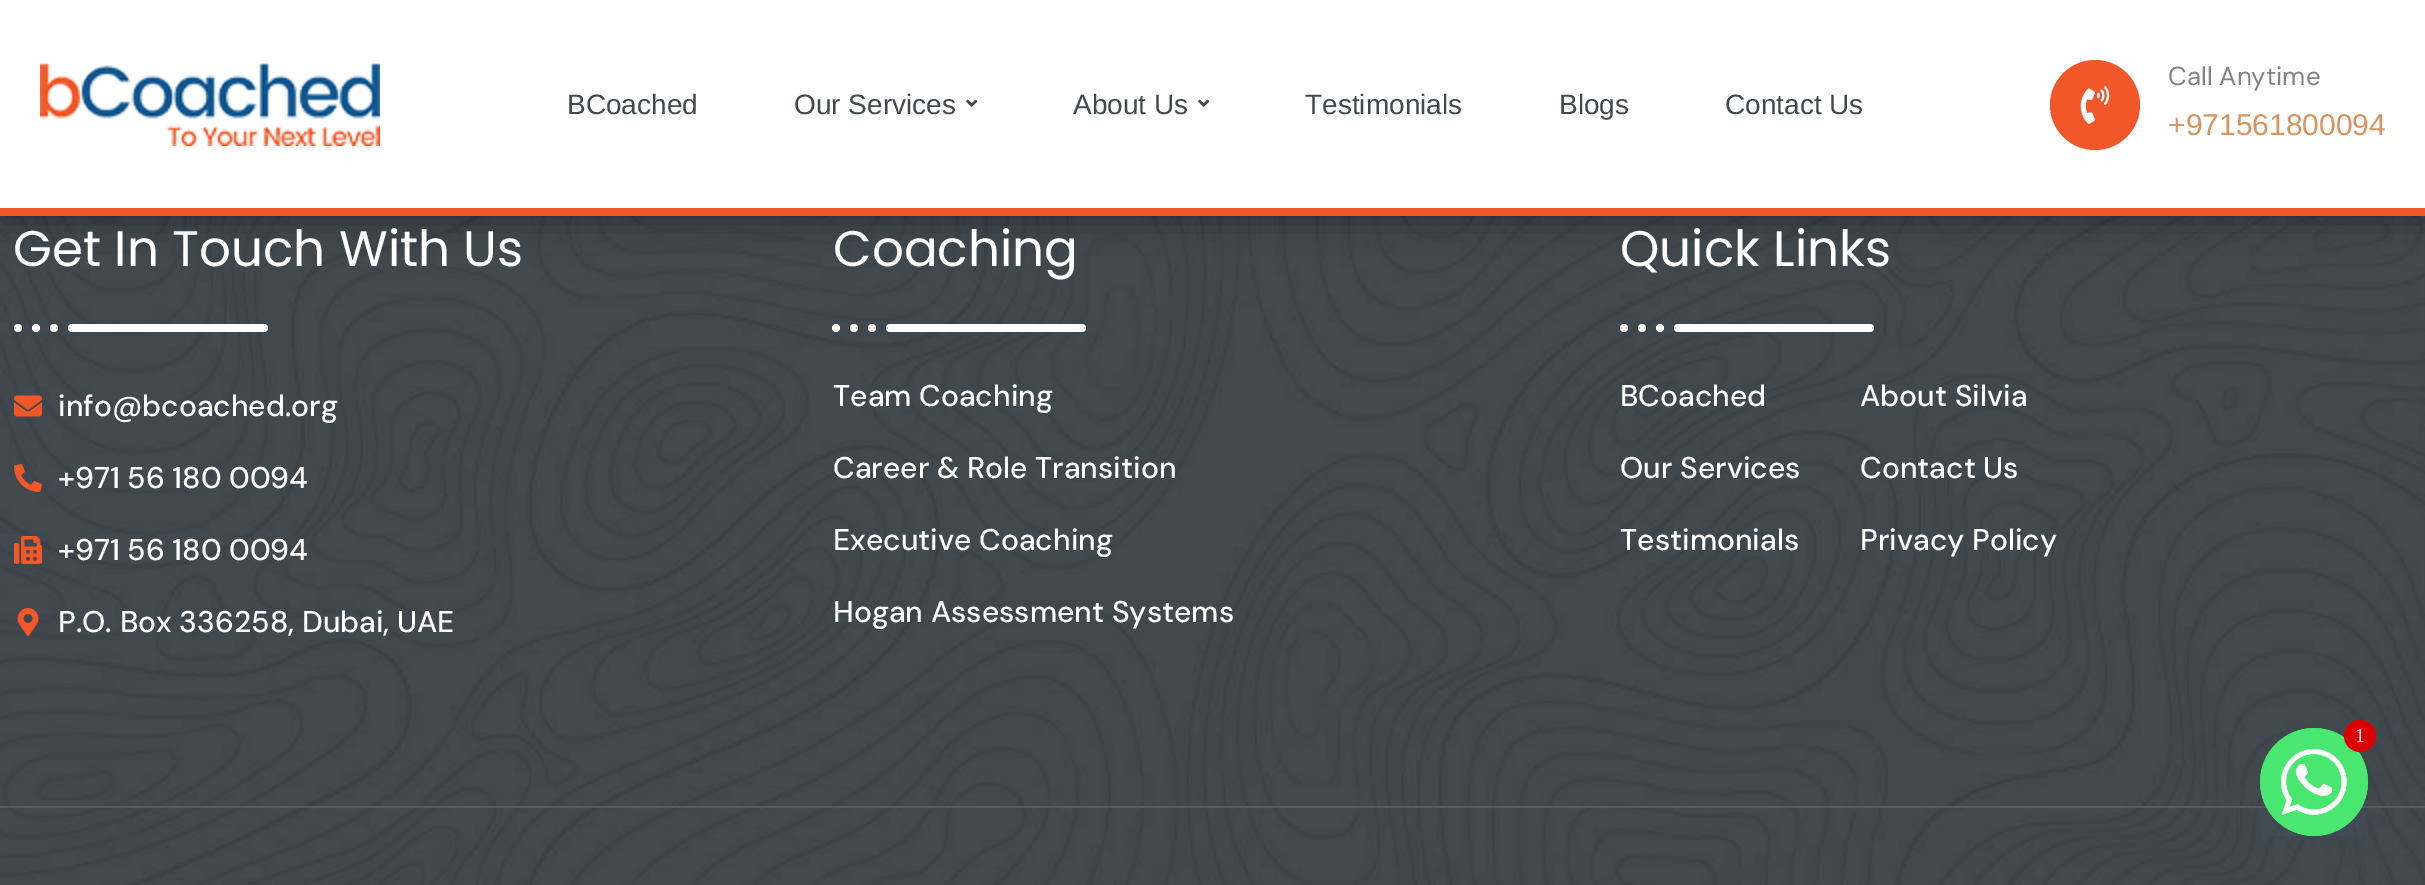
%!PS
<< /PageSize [2425 885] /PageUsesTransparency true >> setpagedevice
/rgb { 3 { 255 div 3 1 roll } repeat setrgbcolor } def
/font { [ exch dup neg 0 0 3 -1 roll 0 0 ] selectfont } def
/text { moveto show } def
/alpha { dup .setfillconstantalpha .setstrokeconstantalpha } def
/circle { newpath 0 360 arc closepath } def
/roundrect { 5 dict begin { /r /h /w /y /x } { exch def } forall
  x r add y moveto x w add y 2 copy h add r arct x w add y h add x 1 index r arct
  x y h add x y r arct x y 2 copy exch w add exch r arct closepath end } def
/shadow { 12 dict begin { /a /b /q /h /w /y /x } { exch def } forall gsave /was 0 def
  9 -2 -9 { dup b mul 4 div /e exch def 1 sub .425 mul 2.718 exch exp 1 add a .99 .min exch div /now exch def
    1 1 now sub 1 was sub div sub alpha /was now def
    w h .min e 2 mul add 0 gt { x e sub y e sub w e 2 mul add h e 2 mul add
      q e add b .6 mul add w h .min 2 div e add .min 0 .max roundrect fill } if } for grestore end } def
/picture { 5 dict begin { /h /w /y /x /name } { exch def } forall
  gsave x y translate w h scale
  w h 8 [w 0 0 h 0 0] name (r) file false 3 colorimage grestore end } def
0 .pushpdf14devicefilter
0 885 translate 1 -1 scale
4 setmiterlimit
255 255 255 rgb
0 0 2425 885 rectfill
(img_04.rgb) 0 216 2425 669 picture
0 0 0 rgb
0 6 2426 216 0 15 0.32 shadow
255 255 255 rgb
0 0 2425 208 rectfill
241 87 40 rgb
0 208 2425 8 rectfill
(img_01.rgb) 40 63 340 83 picture
(img_02.rgb) 966 99 12 8 picture
(img_02.rgb) 1198 99 12 8 picture
2095 105 45 circle fill
(img_03.rgb) 2080 86 30 38 picture
255 255 255 rgb
68 324 200 8 4 roundrect fill
54 328 4 circle fill
36 328 4 circle fill
18 328 4 circle fill
(img_05.rgb) 14 395 28 22 picture
(img_06.rgb) 14 464 28 28 picture
(img_07.rgb) 14 536 28 28 picture
(img_08.rgb) 17 608 22 28 picture
886 324 200 8 4 roundrect fill
872 328 4 circle fill
854 328 4 circle fill
836 328 4 circle fill
1674 324 200 8 4 roundrect fill
1660 328 4 circle fill
1642 328 4 circle fill
1624 328 4 circle fill
84 91 96 rgb
0 806 2425 2 rectfill
(img_09.rgb) 2260 728 108 108 picture
221 0 0 rgb
2360 736 16 circle fill
/LiberationSans-Regular 28 font
65 72 78 rgb
(BCoached) 567 114 text
(Our Services) 794 114 text
(About Us) 1073 114 text
(Testimonials) 1305 114 text
(Blogs) 1559 114 text
(Contact Us) 1725 114 text
/DMSans-Regular 26 font
127 132 137 rgb
(Call Anytime) 2168 85 text
/LiberationSans-Regular 30 font
217 148 93 rgb
(+971561800094) 2168 135 text
/Poppins-Regular 50 font
255 255 255 rgb
(Get In Touch With Us) 13 266 text
/DMSans-Medium 30 font
(info@bcoached.org) 58 416 text
(+971 56 180 0094) 58 488 text
(+971 56 180 0094) 58 560 text
(P.O. Box 336258, Dubai, UAE) 58 632 text
/Poppins-Regular 50 font
(Coaching) 833 266 text
/DMSans-Medium 30 font
(Team Coaching) 833 406 text
(Career & Role Transition) 833 478 text
(Executive Coaching) 833 550 text
(Hogan Assessment Systems) 833 622 text
/Poppins-Regular 50 font
(Quick Links) 1620 266 text
/DMSans-Medium 30 font
(BCoached) 1620 406 text
(Our Services) 1620 478 text
(Testimonials) 1620 550 text
(About Silvia) 1860 406 text
(Contact Us) 1860 478 text
(Privacy Policy) 1860 550 text
/LiberationSerif-Regular 20 font
(1) 2355 742 text
.poppdf14devicefilter showpage
